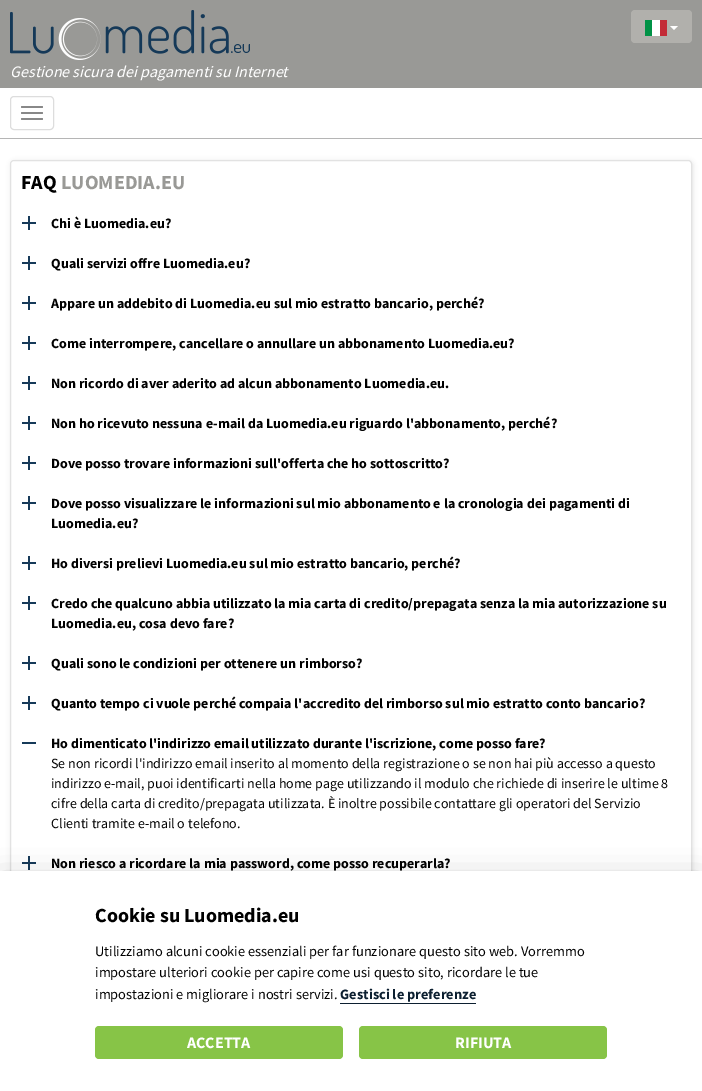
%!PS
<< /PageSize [702 1091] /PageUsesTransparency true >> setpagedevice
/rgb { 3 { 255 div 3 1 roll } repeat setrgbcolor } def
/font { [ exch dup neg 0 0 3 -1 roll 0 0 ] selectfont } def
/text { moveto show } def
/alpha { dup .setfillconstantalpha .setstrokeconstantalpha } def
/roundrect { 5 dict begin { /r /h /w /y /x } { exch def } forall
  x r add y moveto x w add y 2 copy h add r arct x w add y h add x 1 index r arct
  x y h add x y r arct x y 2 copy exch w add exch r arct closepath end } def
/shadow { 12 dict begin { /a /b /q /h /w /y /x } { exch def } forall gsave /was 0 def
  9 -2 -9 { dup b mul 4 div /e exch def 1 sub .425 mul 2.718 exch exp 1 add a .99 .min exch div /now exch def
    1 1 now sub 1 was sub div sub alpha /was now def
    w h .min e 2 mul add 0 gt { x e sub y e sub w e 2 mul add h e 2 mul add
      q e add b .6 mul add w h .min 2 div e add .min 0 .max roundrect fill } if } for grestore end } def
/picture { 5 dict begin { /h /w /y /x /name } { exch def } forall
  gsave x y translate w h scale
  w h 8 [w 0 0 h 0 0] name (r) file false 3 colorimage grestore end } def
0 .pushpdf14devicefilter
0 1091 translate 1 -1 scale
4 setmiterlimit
255 255 255 rgb
0 0 702 1091 rectfill
181 181 181 rgb
0 138 702 1 rectfill
153 153 150 rgb
0 0 702 88 rectfill
(img_01.rgb) 10 10 240 50 picture
177 176 172 rgb
631 10 61 33 4 roundrect fill
(img_02.rgb) 645 20 22 16 picture
255 255 255 rgb
670 26 moveto 8 0 rlineto -4 4 rlineto closepath fill
221 221 221 rgb
10.5 96.5 43 33 3.5 roundrect stroke
136 136 136 rgb
21 106 22 2 1 roundrect fill
21 112 22 2 1 roundrect fill
21 118 22 2 1 roundrect fill
gsave
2 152 moveto 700 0 rlineto 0 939 rlineto -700 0 rlineto closepath 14 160 moveto 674 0 rlineto 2 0 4 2 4 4 rcurveto 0 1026 rlineto 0 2 -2 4 -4 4 rcurveto -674 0 rlineto -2 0 -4 -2 -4 -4 rcurveto 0 -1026 rlineto 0 -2 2 -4 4 -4 rcurveto closepath eoclip newpath
226 226 226 rgb
11 161 682 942 4 2.5 1 shadow
grestore
226 226 226 rgb
10.5 160.5 681 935 3.5 roundrect stroke
(img_03.rgb) 22 216 14 14 picture
(img_03.rgb) 22 256 14 14 picture
(img_03.rgb) 22 296 14 14 picture
(img_03.rgb) 22 336 14 14 picture
(img_03.rgb) 22 376 14 14 picture
(img_03.rgb) 22 416 14 14 picture
(img_03.rgb) 22 456 14 14 picture
(img_03.rgb) 22 496 14 14 picture
(img_03.rgb) 22 556 14 14 picture
(img_03.rgb) 22 596 14 14 picture
(img_03.rgb) 22 656 14 14 picture
(img_03.rgb) 22 696 14 14 picture
22 58 89 rgb
22 742 14 2 rectfill
(img_03.rgb) 22 856 14 14 picture
2 2 3 rgb
0 881 702 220 0 15 0.28 shadow
255 255 255 rgb
0 871 702 220 rectfill
12 31 48 rgb
340 1003 136 1 rectfill
135 196 71 rgb
95 1026 248 33 4 roundrect fill
359 1026 248 33 4 roundrect fill
/SourceSansPro-Italic 16 font
255 255 255 rgb
(Gestione sicura dei pagamenti su Internet) 10 77 text
/SourceSansPro-Bold 20 font
0 0 0 rgb
(FAQ) 21 189 text
153 153 150 rgb
(LUOMEDIA.EU) 61 189 text
/SourceSansPro-Bold 14 font
0 0 0 rgb
(Chi è Luomedia.eu?) 51 228 text
(Quali servizi offre Luomedia.eu?) 51 268 text
(Appare un addebito di Luomedia.eu sul mio estratto bancario, perché?) 51 308 text
(Come interrompere, cancellare o annullare un abbonamento Luomedia.eu?) 51 348 text
(Non ricordo di aver aderito ad alcun abbonamento Luomedia.eu.) 51 388 text
(Non ho ricevuto nessuna e-mail da Luomedia.eu riguardo l'abbonamento, perché?) 51 428 text
(Dove posso trovare informazioni sull'offerta che ho sottoscritto?) 51 468 text
(Dove posso visualizzare le informazioni sul mio abbonamento e la cronologia dei pagamenti di) 51 508 text
(Luomedia.eu?) 51 528 text
(Ho diversi prelievi Luomedia.eu sul mio estratto bancario, perché?) 51 568 text
(Credo che qualcuno abbia utilizzato la mia carta di credito/prepagata senza la mia autorizzazione su) 51 608 text
(Luomedia.eu, cosa devo fare?) 51 628 text
(Quali sono le condizioni per ottenere un rimborso?) 51 668 text
(Quanto tempo ci vuole perché compaia l'accredito del rimborso sul mio estratto conto bancario?) 51 708 text
(Ho dimenticato l'indirizzo email utilizzato durante l'iscrizione, come posso fare?) 51 748 text
/SourceSansPro-Regular 14 font
(Se non ricordi l'indirizzo email inserito al momento della registrazione o se non hai più accesso a questo) 51 768 text
(indirizzo e-mail, puoi identificarti nella home page utilizzando il modulo che richiede di inserire le ultime 8) 51 788 text
(cifre della carta di credito/prepagata utilizzata. È inoltre possibile contattare gli operatori del Servizio) 51 808 text
(Clienti tramite e-mail o telefono.) 51 828 text
/SourceSansPro-Bold 14 font
(Non riesco a ricordare la mia password, come posso recuperarla?) 51 868 text
/SourceSansPro-Bold 20 font
(Cookie su Luomedia.eu) 95 922 text
/SourceSansPro-Regular 14.4 font
(Utilizziamo alcuni cookie essenziali per far funzionare questo sito web. Vorremmo) 95 956 text
(impostare ulteriori cookie per capire come usi questo sito, ricordare le tue) 95 977 text
(impostazioni e migliorare i nostri servizi.) 95 999 text
/SourceSansPro-Bold 14.4 font
12 31 48 rgb
(Gestisci le preferenze) 340 999 text
/SourceSansPro-Bold 16 font
255 255 255 rgb
(ACCETTA) 187 1048 text
(RIFIUTA) 455 1048 text
.poppdf14devicefilter showpage
